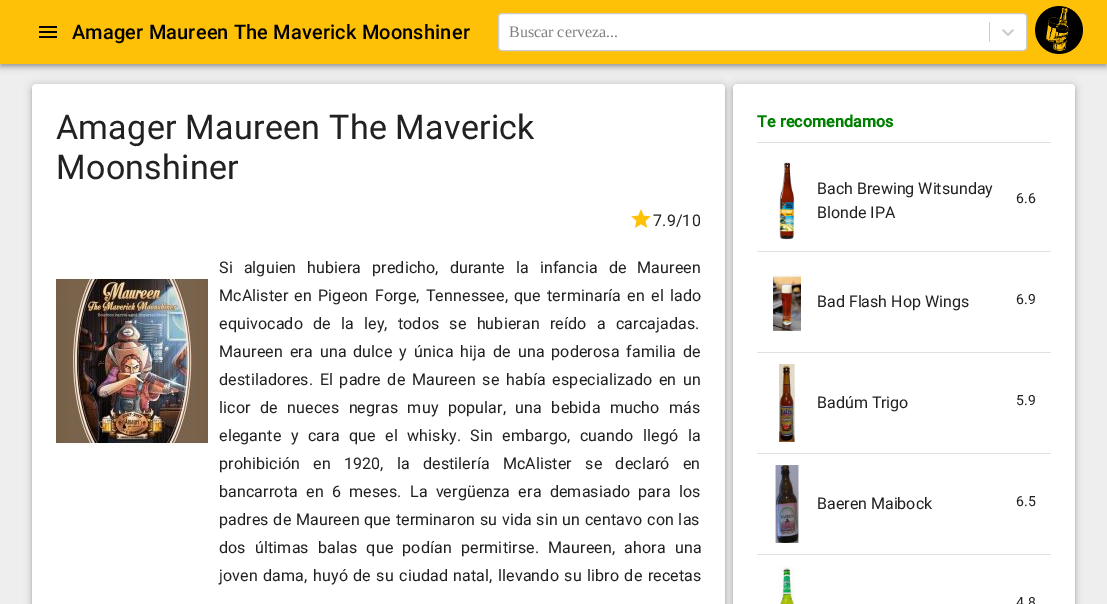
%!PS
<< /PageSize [1107 604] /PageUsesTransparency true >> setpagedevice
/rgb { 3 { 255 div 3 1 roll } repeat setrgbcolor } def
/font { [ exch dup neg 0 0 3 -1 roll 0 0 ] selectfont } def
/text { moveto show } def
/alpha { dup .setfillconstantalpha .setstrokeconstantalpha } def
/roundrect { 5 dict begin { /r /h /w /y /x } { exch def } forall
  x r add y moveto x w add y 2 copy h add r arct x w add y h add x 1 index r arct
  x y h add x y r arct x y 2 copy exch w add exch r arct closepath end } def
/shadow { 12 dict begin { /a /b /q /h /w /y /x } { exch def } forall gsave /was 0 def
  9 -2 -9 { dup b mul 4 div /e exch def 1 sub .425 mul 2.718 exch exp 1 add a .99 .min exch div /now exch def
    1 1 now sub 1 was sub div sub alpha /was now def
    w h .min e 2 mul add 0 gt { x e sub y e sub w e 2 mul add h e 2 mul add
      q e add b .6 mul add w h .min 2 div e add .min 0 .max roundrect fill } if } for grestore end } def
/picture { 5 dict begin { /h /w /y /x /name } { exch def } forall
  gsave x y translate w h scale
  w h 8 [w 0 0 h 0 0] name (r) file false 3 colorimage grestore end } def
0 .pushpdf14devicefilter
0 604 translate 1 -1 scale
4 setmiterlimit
238 238 238 rgb
0 0 1107 604 rectfill
0 0 0 rgb
0 1 1107 64 0 5 0.12 shadow
0 4 1107 64 0 2.5 0.14 shadow
1 3 1105 62 0 2 0.2 shadow
255 193 7 rgb
0 0 1107 64 rectfill
(img_01.rgb) 39 26 18 12 picture
255 255 255 rgb
498.5 13.5 528 37 3.5 roundrect gsave fill grestore
204 204 204 rgb
stroke
989 22 1 20 rectfill
(img_02.rgb) 1002 29 12 7 picture
(img_03.rgb) 1035 6 48 48 picture
0 0 0 rgb
32 87 693 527 4 2 0.14 shadow
32 85 693 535 4 4 0.2 shadow
255 255 255 rgb
36 84 moveto 685 0 rlineto 2 0 4 2 4 4 rcurveto 0 516 rlineto -693 0 rlineto 0 -516 rlineto 0 -2 2 -4 4 -4 rcurveto closepath fill
(img_04.rgb) 56 277 152 170 picture
(img_05.rgb) 631 209 20 19 picture
0 0 0 rgb
733 87 342 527 4 2 0.14 shadow
733 85 342 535 4 4 0.2 shadow
255 255 255 rgb
737 84 moveto 334 0 rlineto 2 0 4 2 4 4 rcurveto 0 516 rlineto -342 0 rlineto 0 -516 rlineto 0 -2 2 -4 4 -4 rcurveto closepath fill
224 224 224 rgb
757 142 294 1 rectfill
757 251 294 1 rectfill
(img_06.rgb) 779 162 16 78 picture
757 352 294 1 rectfill
(img_07.rgb) 773 274 28 58 picture
757 453 294 1 rectfill
(img_08.rgb) 779 364 16 78 picture
757 554 294 1 rectfill
(img_09.rgb) 775 465 24 78 picture
(img_10.rgb) 779 566 16 38 picture
/Roboto-Medium 20 font
0 0 0 rgb
72 39 moveto 0.15 0 (Amager Maureen The Maverick Moonshiner) ashow
/LiberationSerif-Regular 16 font
128 128 128 rgb
(Buscar cerveza...) 509 37 text
/Roboto-Regular 34 font
33 33 33 rgb
56 139 moveto 0.25 0 (Amager Maureen The Maverick) ashow
56 179 moveto 0.25 0 (Moonshiner) ashow
/Roboto-Regular 16 font
653 226 moveto 0.15 0 (7.9/10) ashow
219 273 moveto 6.75 0 32 0.15 0 (Si alguien hubiera predicho, durante la infancia de Maureen) awidthshow
219 301 moveto 2 0 32 0.15 0 (McAlister en Pigeon Forge, Tennessee, que terminaría en el lado) awidthshow
219 329 moveto 6 0 32 0.15 0 (equivocado de la ley, todos se hubieran reído a carcajadas.) awidthshow
219 357 moveto 2.75 0 32 0.15 0 (Maureen era una dulce y única hija de una poderosa familia de) awidthshow
219 385 moveto 2.5 0 32 0.15 0 (destiladores. El padre de Maureen se había especializado en un) awidthshow
219 413 moveto 5.25 0 32 0.15 0 (licor de nueces negras muy popular, una bebida mucho más) awidthshow
219 441 moveto 5.25 0 32 0.15 0 (elegante y cara que el whisky. Sin embargo, cuando llegó la) awidthshow
219 469 moveto 9 0 32 0.15 0 (prohibición en 1920, la destilería McAlister se declaró en) awidthshow
219 497 moveto 4 0 32 0.15 0 (bancarrota en 6 meses. La vergüenza era demasiado para los) awidthshow
219 525 moveto 0.5 0 32 0.15 0 (padres de Maureen que terminaron su vida sin un centavo con las) awidthshow
219 553 moveto 5 0 32 0.15 0 (dos últimas balas que podían permitirse. Maureen, ahora una) awidthshow
219 581 moveto 1.25 0 32 0.15 0 (joven dama, huyó de su ciudad natal, llevando su libro de recetas) awidthshow
/Roboto-Bold 16 font
0 128 0 rgb
757 127 moveto 0.15 0 (Te recomendamos) ashow
/Roboto-Regular 16 font
33 33 33 rgb
(Bach Brewing Witsunday) 817 194 text
(Blonde IPA) 817 218 text
/Roboto-Regular 14 font
(6.6) 1016 203 text
/Roboto-Regular 16 font
(Bad Flash Hop Wings) 817 307 text
/Roboto-Regular 14 font
(6.9) 1016 304 text
/Roboto-Regular 16 font
(Badúm Trigo) 817 408 text
/Roboto-Regular 14 font
(5.9) 1016 405 text
/Roboto-Regular 16 font
(Baeren Maibock) 817 509 text
/Roboto-Regular 14 font
(6.5) 1016 506 text
(4.8) 1016 607 text
.poppdf14devicefilter showpage
